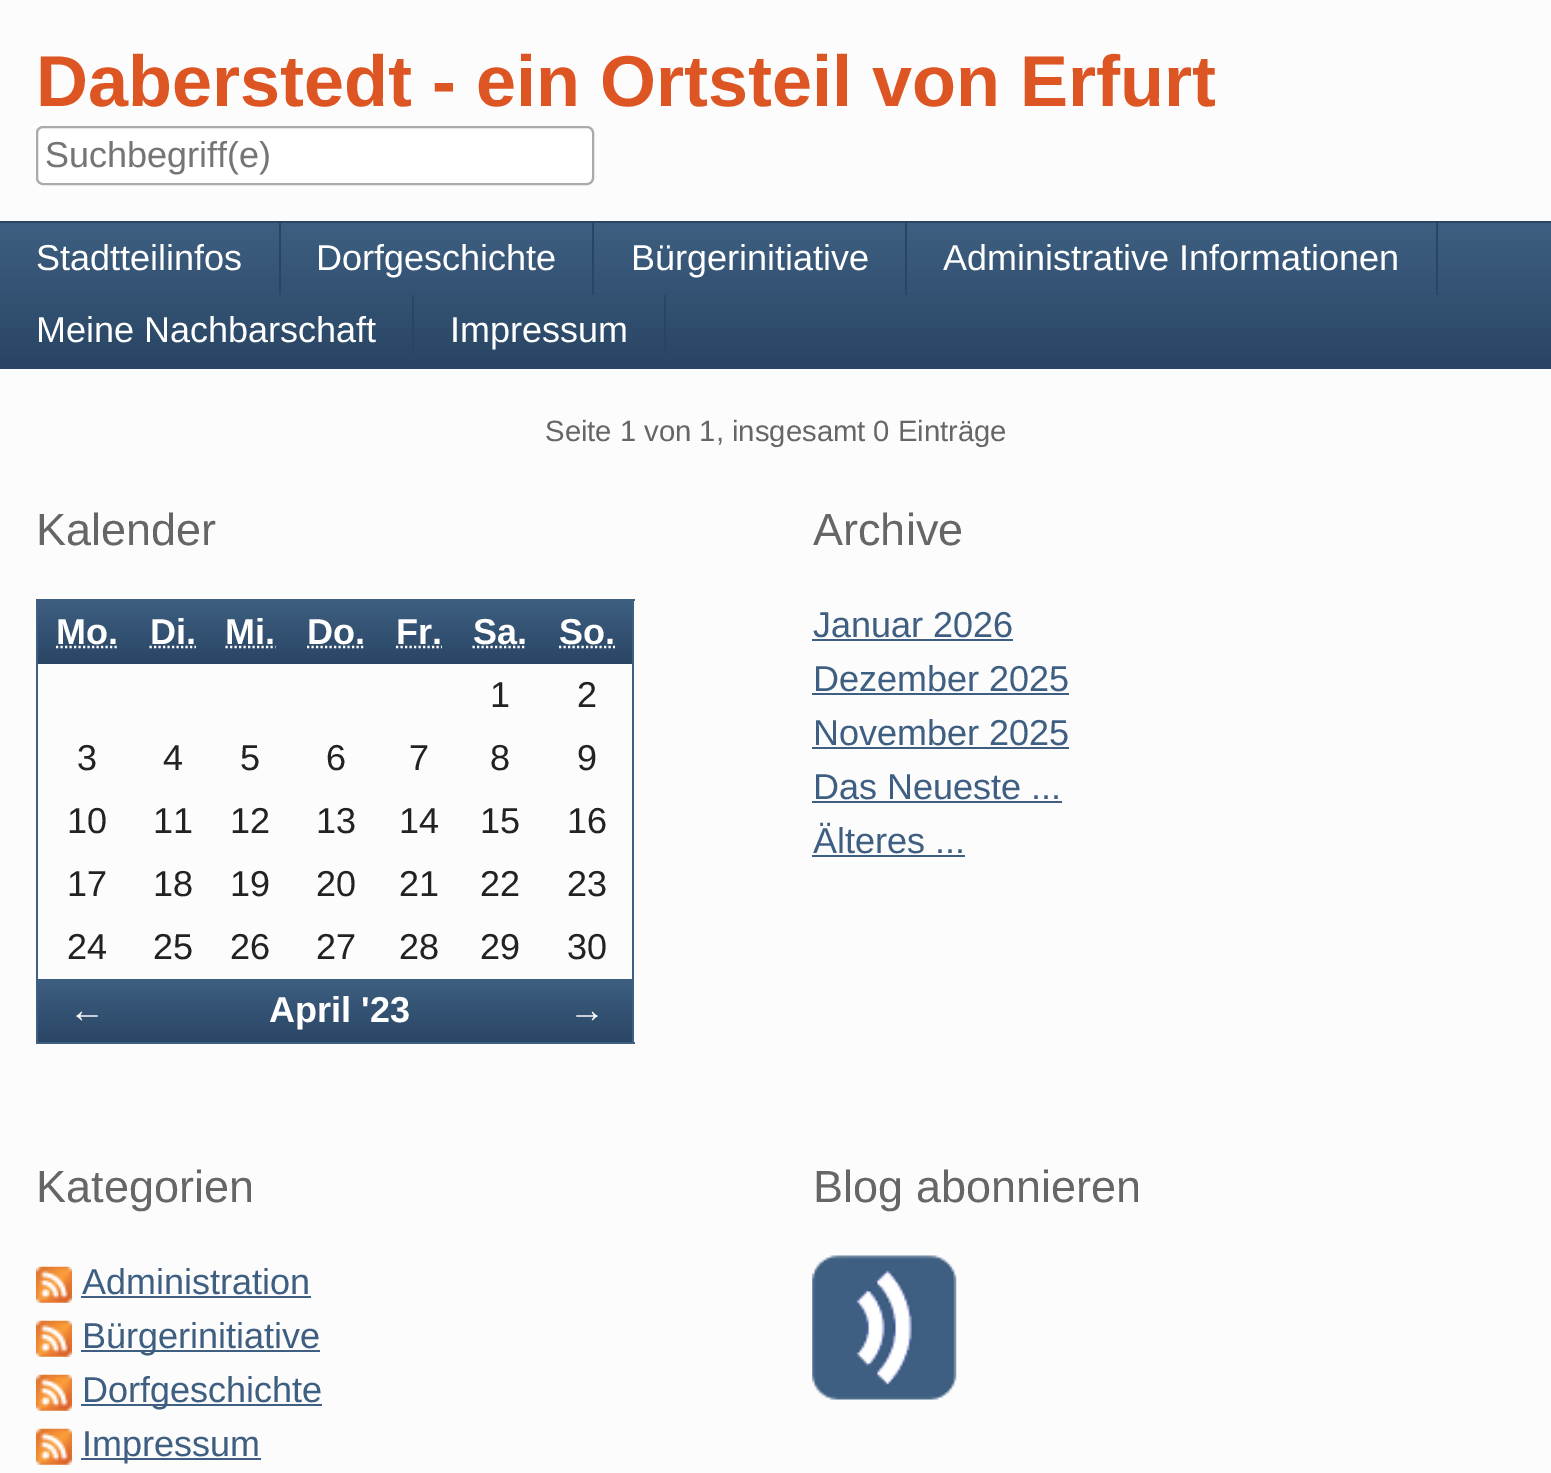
%!PS
<< /PageSize [1551 1473] >> setpagedevice
/rgb { 3 { 255 div 3 1 roll } repeat setrgbcolor } def
/font { [ exch dup neg 0 0 3 -1 roll 0 0 ] selectfont } def
/text { moveto show } def
/roundrect { 5 dict begin { /r /h /w /y /x } { exch def } forall
  x r add y moveto x w add y 2 copy h add r arct x w add y h add x 1 index r arct
  x y h add x y r arct x y 2 copy exch w add exch r arct closepath end } def
/picture { 5 dict begin { /h /w /y /x /name } { exch def } forall
  gsave x y translate w h scale
  w h 8 [w 0 0 h 0 0] name (r) file false 3 colorimage grestore end } def
0 1473 translate 1 -1 scale
4 setmiterlimit
252 252 252 rgb
0 0 1551 1473 rectfill
255 255 255 rgb
37 127 556 57 6 roundrect gsave fill grestore
170 170 170 rgb
2 setlinewidth
stroke
41 69 100 rgb
0 221 1551 2 rectfill
gsave 0 223 moveto 1551 0 rlineto 0 144 rlineto -1551 0 rlineto closepath clip newpath
<< /ShadingType 2 /ColorSpace /DeviceRGB /Coords [776 223 776 367] /Extend [true true] /Function << /FunctionType 2 /Domain [0 1] /C0 [0.243 0.373 0.506] /C1 [0.161 0.271 0.392] /N 1 >> >> shfill grestore
0 367 1551 2 rectfill
279 223 2 72 rectfill
592 223 2 72 rectfill
905 223 2 72 rectfill
1436 223 2 72 rectfill
412 295 2 60 rectfill
664 295 2 60 rectfill
62 95 129 rgb
36 599 599 2 rectfill
632 599 2 445 rectfill
36 1042 599 2 rectfill
36 599 2 445 rectfill
gsave 38 601 moveto 594 0 rlineto 0 63 rlineto -594 0 rlineto closepath clip newpath
<< /ShadingType 2 /ColorSpace /DeviceRGB /Coords [335 601 335 664] /Extend [true true] /Function << /FunctionType 2 /Domain [0 1] /C0 [0.243 0.373 0.506] /C1 [0.161 0.271 0.392] /N 1 >> >> shfill grestore
255 255 255 rgb
2.2 setlinewidth
[2.25 2.25] 0 setdash
56 647 moveto 61.5 0 rlineto stroke
149.5 647 moveto 46.5 0 rlineto stroke
225.5 647 moveto 50 0 rlineto stroke
307 647 moveto 58 0 rlineto stroke
396 647 moveto 46 0 rlineto stroke
472.5 647 moveto 54 0 rlineto stroke
559 647 moveto 56 0 rlineto stroke
gsave 38 979 moveto 594 0 rlineto 0 63 rlineto -594 0 rlineto closepath clip newpath
<< /ShadingType 2 /ColorSpace /DeviceRGB /Coords [335 979 335 1044] /Extend [true true] /Function << /FunctionType 2 /Domain [0 1] /C0 [0.243 0.373 0.506] /C1 [0.161 0.271 0.392] /N 1 >> >> shfill grestore
62 95 129 rgb
812 639 201 2 rectfill
812 693 257 2 rectfill
812 747 257 2 rectfill
812 801 250 2 rectfill
812 855 153 2 rectfill
(img_01.rgb) 36 1266 36 37 picture
81 1296 230 2 rectfill
(img_01.rgb) 36 1320 36 37 picture
81 1350 239 2 rectfill
(img_01.rgb) 36 1374 36 37 picture
81 1404 241 2 rectfill
(img_01.rgb) 36 1428 36 37 picture
81 1458 180 2 rectfill
(img_02.rgb) 812 1255 145 145 picture
/LiberationSans-Bold 72 font
221 85 34 rgb
(Daberstedt - ein Ortsteil von Erfurt) 36 106 text
/LiberationSans-Regular 36 font
117 117 117 rgb
(Suchbegriff\(e\)) 45 167 text
255 255 255 rgb
(Stadtteilinfos) 36 270 text
(Dorfgeschichte) 316 270 text
(Bürgerinitiative) 631 270 text
(Administrative Informationen) 943 270 text
(Meine Nachbarschaft) 36 342 text
(Impressum) 450 342 text
/LiberationSans-Regular 29.25 font
102 102 102 rgb
(Seite 1 von 1, insgesamt 0 Einträge) 545 441 text
/LiberationSans-Regular 45 font
(Kalender) 36 545 text
/LiberationSans-Bold 36 font
255 255 255 rgb
(Mo.) 56 644 text
(Di.) 150 644 text
(Mi.) 225 644 text
(Do.) 307 644 text
(Fr.) 396 644 text
(Sa.) 473 644 text
(So.) 559 644 text
/LiberationSans-Regular 36 font
34 34 34 rgb
(1) 490 707 text
(2) 577 707 text
(3) 77 770 text
(4) 163 770 text
(5) 240 770 text
(6) 326 770 text
(7) 409 770 text
(8) 490 770 text
(9) 577 770 text
(10) 67 833 text
(11) 153 833 text
(12) 230 833 text
(13) 316 833 text
(14) 399 833 text
(15) 480 833 text
(16) 567 833 text
(17) 67 896 text
(18) 153 896 text
(19) 230 896 text
(20) 316 896 text
(21) 399 896 text
(22) 480 896 text
(23) 567 896 text
(24) 67 959 text
(25) 153 959 text
(26) 230 959 text
(27) 316 959 text
(28) 399 959 text
(29) 480 959 text
(30) 567 959 text
/LiberationSans-Bold 36 font
255 255 255 rgb
(←) 69 1022 text
(April '23) 269 1022 text
(→) 569 1022 text
/LiberationSans-Regular 45 font
102 102 102 rgb
(Archive) 813 545 text
/LiberationSans-Regular 36 font
62 95 129 rgb
(Januar 2026) 813 637 text
(Dezember 2025) 813 691 text
(November 2025) 813 745 text
(Das Neueste ...) 813 799 text
(Älteres ...) 813 853 text
/LiberationSans-Regular 45 font
102 102 102 rgb
(Kategorien) 36 1202 text
/LiberationSans-Regular 36 font
62 95 129 rgb
(Administration) 82 1294 text
(Bürgerinitiative) 82 1348 text
(Dorfgeschichte) 82 1402 text
(Impressum) 82 1456 text
/LiberationSans-Regular 45 font
102 102 102 rgb
(Blog abonnieren) 813 1202 text
showpage
